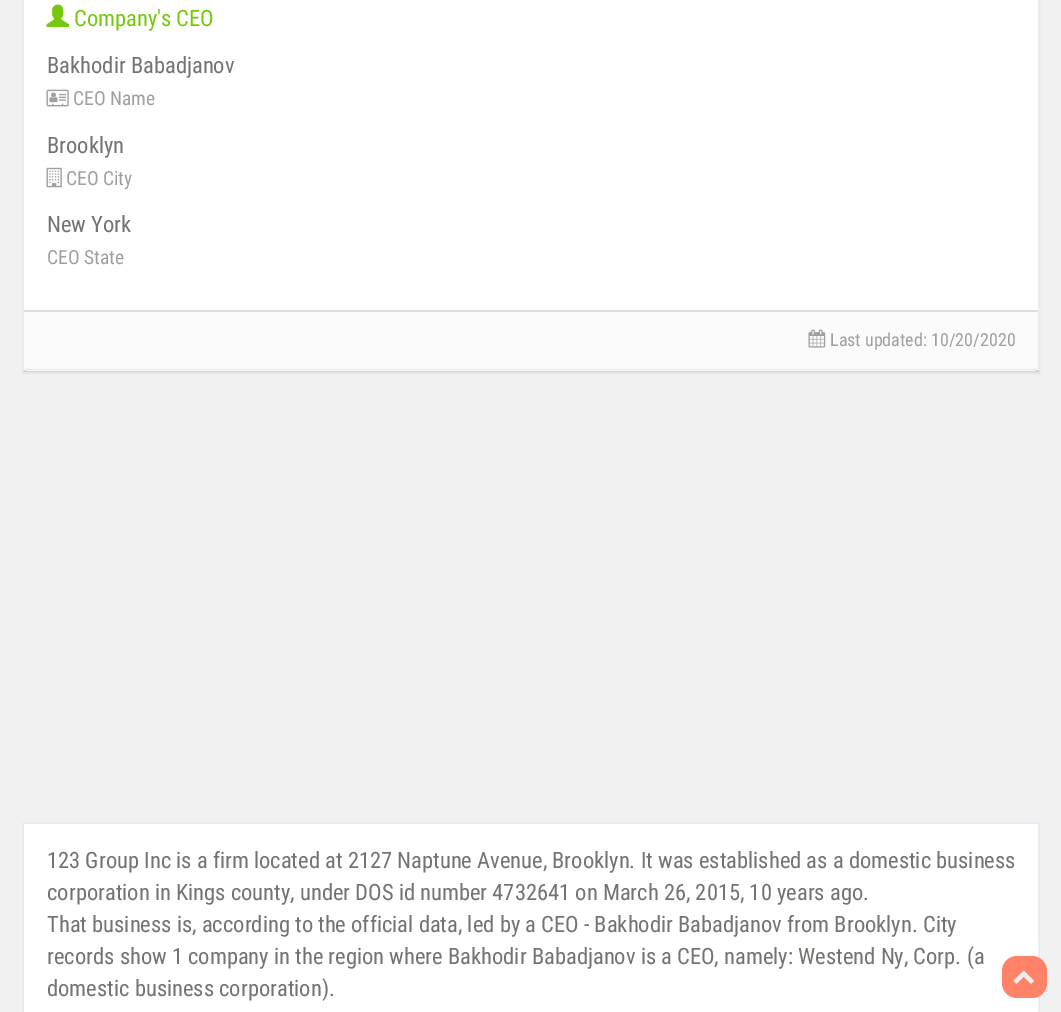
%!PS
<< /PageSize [1061 1012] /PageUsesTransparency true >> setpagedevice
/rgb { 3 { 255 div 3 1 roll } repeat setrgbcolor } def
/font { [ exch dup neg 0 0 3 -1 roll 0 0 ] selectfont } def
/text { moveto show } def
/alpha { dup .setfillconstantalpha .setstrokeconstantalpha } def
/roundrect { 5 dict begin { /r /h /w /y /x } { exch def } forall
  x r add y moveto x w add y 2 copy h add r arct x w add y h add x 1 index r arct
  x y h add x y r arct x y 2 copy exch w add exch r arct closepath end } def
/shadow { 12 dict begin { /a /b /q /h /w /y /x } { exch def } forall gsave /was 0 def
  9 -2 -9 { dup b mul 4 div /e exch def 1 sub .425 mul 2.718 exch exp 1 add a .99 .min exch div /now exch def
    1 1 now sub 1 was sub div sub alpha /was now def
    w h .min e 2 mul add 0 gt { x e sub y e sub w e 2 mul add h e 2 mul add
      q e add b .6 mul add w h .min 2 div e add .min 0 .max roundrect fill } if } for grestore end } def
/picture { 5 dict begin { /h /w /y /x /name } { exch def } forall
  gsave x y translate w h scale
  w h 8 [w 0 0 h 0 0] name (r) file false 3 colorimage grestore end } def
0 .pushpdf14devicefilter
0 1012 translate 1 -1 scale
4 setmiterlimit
241 241 241 rgb
0 0 1061 1012 rectfill
0 0 0 rgb
23 -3 1017 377 0 1 0.05 shadow
255 255 255 rgb
23 0 1017 372 rectfill
231 236 243 rgb
1040 -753 moveto 0 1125 rlineto -2 -2 rlineto 0 -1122 rlineto closepath fill
0.17 alpha
0 0 0 rgb
1040 372 moveto -1018 0 rlineto 2 -2 rlineto 1014 0 rlineto closepath fill
1 alpha
231 236 243 rgb
22 372 moveto 0 -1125 rlineto 2 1 rlineto 0 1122 rlineto closepath fill
(img_01.rgb) 46 4 23 23 picture
(img_02.rgb) 46 89 23 18 picture
(img_03.rgb) 46 167 16 21 picture
251 251 251 rgb
24 311 moveto 1014 0 rlineto 0 55 rlineto 0 3 -2 5 -5 5 rcurveto -1004 0 rlineto -3 0 -5 -2 -5 -5 rcurveto closepath fill
221 221 221 rgb
24 310 1014 2 rectfill
231 231 231 rgb
1034 370 moveto 2 0 4 -2 4 -4 rcurveto 0 2 -2 3 -4 3 rcurveto -1006 0 rlineto -2 0 -4 -1 -4 -3 rcurveto 0 2 2 4 4 4 rcurveto closepath fill
(img_04.rgb) 808 329 18 19 picture
255 255 255 rgb
24 824 1014 188 rectfill
231 236 243 rgb
23 822 1017 2 rectfill
1040 822 moveto 0 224 rlineto -2 -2 rlineto 0 -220 rlineto closepath fill
22 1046 moveto 0 -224 rlineto 2 2 rlineto 0 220 rlineto closepath fill
255 130 105 rgb
1002 956 45 42 15 roundrect fill
(img_05.rgb) 1013 970 21 14 picture
/RobotoCondensed-Regular 22.5 font
118 200 14 rgb
(Company's CEO) 74 26 text
118 114 111 rgb
(Bakhodir Babadjanov) 47 73 text
/RobotoCondensed-Regular 19.5 font
157 159 162 rgb
(CEO Name) 73 105 text
/RobotoCondensed-Regular 22.5 font
118 114 111 rgb
(Brooklyn) 47 153 text
/RobotoCondensed-Regular 19.5 font
157 159 162 rgb
(CEO City) 66 185 text
/RobotoCondensed-Regular 22.5 font
118 114 111 rgb
(New York) 47 232 text
/RobotoCondensed-Regular 19.5 font
157 159 162 rgb
(CEO State) 47 264 text
/RobotoCondensed-Regular 18 font
(Last updated: 10/20/2020) 830 346 text
/RobotoCondensed-Regular 22.5 font
118 114 111 rgb
(123 Group Inc is a firm located at 2127 Naptune Avenue, Brooklyn. It was established as a domestic business) 47 868 text
(corporation in Kings county, under DOS id number 4732641 on March 26, 2015, 10 years ago.) 47 900 text
(That business is, according to the official data, led by a CEO - Bakhodir Babadjanov from Brooklyn. City) 47 932 text
(records show 1 company in the region where Bakhodir Babadjanov is a CEO, namely: Westend Ny, Corp. \(a) 47 964 text
(domestic business corporation\).) 47 996 text
.poppdf14devicefilter showpage
